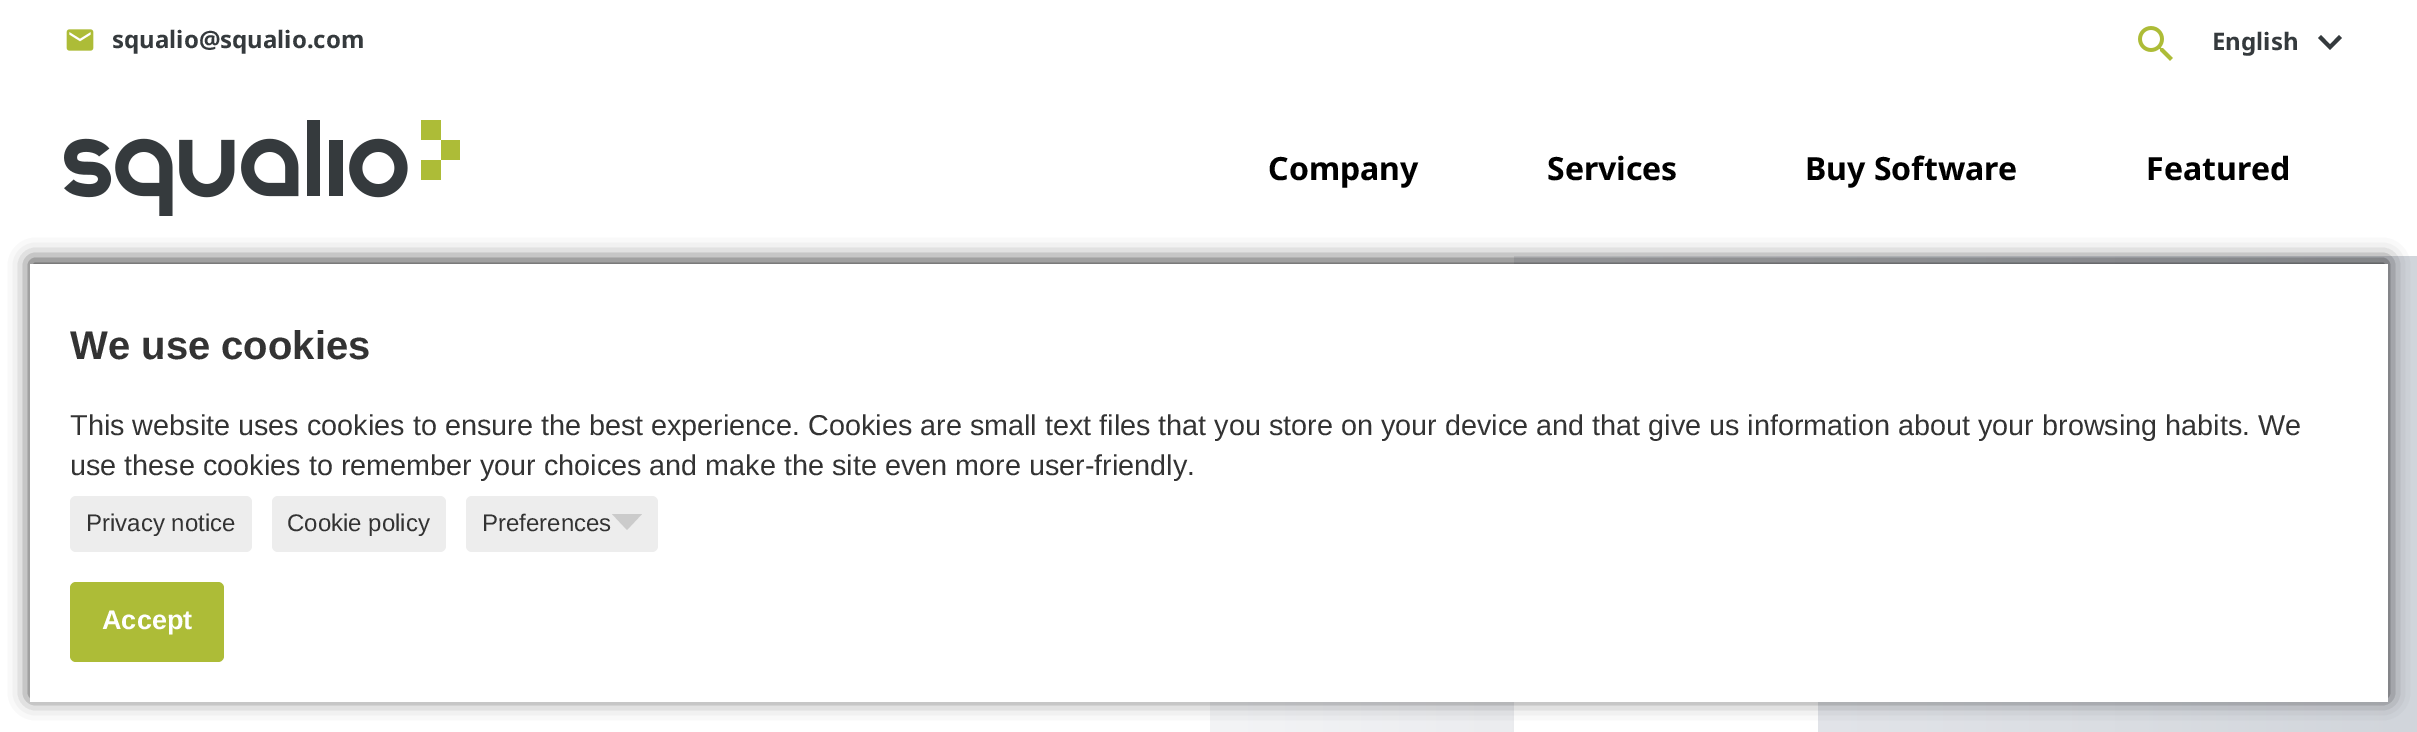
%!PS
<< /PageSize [2417 732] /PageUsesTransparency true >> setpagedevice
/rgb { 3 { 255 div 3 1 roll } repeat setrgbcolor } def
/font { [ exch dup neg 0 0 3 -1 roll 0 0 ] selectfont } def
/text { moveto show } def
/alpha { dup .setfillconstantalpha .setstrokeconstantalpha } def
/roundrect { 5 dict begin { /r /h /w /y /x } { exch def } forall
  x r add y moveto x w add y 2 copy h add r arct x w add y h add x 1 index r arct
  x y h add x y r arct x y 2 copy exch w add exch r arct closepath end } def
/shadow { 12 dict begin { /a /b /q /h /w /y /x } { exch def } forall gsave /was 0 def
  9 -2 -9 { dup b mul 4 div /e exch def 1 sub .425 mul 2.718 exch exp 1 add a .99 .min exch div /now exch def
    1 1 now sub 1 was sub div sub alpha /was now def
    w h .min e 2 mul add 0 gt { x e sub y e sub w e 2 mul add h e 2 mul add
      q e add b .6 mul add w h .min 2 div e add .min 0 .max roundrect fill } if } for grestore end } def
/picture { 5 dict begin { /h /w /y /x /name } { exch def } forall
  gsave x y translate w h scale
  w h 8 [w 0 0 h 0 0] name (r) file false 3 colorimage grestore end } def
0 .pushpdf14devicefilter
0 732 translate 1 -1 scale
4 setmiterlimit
255 255 255 rgb
0 0 2417 732 rectfill
(img_01.rgb) 66 29 28 22 picture
(img_02.rgb) 2138 26 35 35 picture
53 58 61 rgb
2321 35 moveto 9 9.5 rlineto 9 -9.5 rlineto 3 3 rlineto -12 12 rlineto -12 -12 rlineto closepath fill
(img_03.rgb) 64 120 396 96 picture
gsave 1210 256 moveto 1207 0 rlineto 0 476 rlineto -1207 0 rlineto closepath clip newpath
<< /ShadingType 2 /ColorSpace /DeviceRGB /Coords [1210 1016 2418 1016] /Extend [true true] /Function << /FunctionType 2 /Domain [0 1] /C0 [0.953 0.957 0.965] /C1 [0.82 0.835 0.859] /N 1 >> >> shfill grestore
255 255 255 rgb
1210 256 304 8 rectfill
1514 702 304 30 rectfill
0 0 0 rgb
30 260 2358 438 0 10 0.75 shadow
255 255 255 rgb
30 264 2358 438 rectfill
237 237 237 rgb
70 496 182 56 6 roundrect fill
272 496 174 56 6 roundrect fill
466 496 192 56 6 roundrect fill
203 203 203 rgb
627 530 moveto -15 -16 rlineto 30 0 rlineto closepath fill
173 188 55 rgb
70 582 154 80 6 roundrect fill
/NotoSans-Bold 24 font
53 58 61 rgb
(squalio@squalio.com) 112 48 text
(English) 2212 50 text
/NotoSans-Bold 32 font
0 0 0 rgb
(Company) 1268 180 text
(Services) 1547 180 text
(Buy Software) 1805 180 text
(Featured) 2146 180 text
/LiberationSans-Bold 40 font
51 51 51 rgb
(We use cookies) 70 359 text
/LiberationSans-Regular 28.8 font
(This website uses cookies to ensure the best experience. Cookies are small text files that you store on your device and that give us information about your browsing habits. We) 70 435 text
(use these cookies to remember your choices and make the site even more user-friendly.) 70 475 text
/LiberationSans-Regular 24 font
(Privacy notice) 86 531 text
(Cookie policy) 287 531 text
(Preferences) 482 531 text
/LiberationSans-Bold 27 font
255 255 255 rgb
(Accept) 102 629 text
.poppdf14devicefilter showpage
